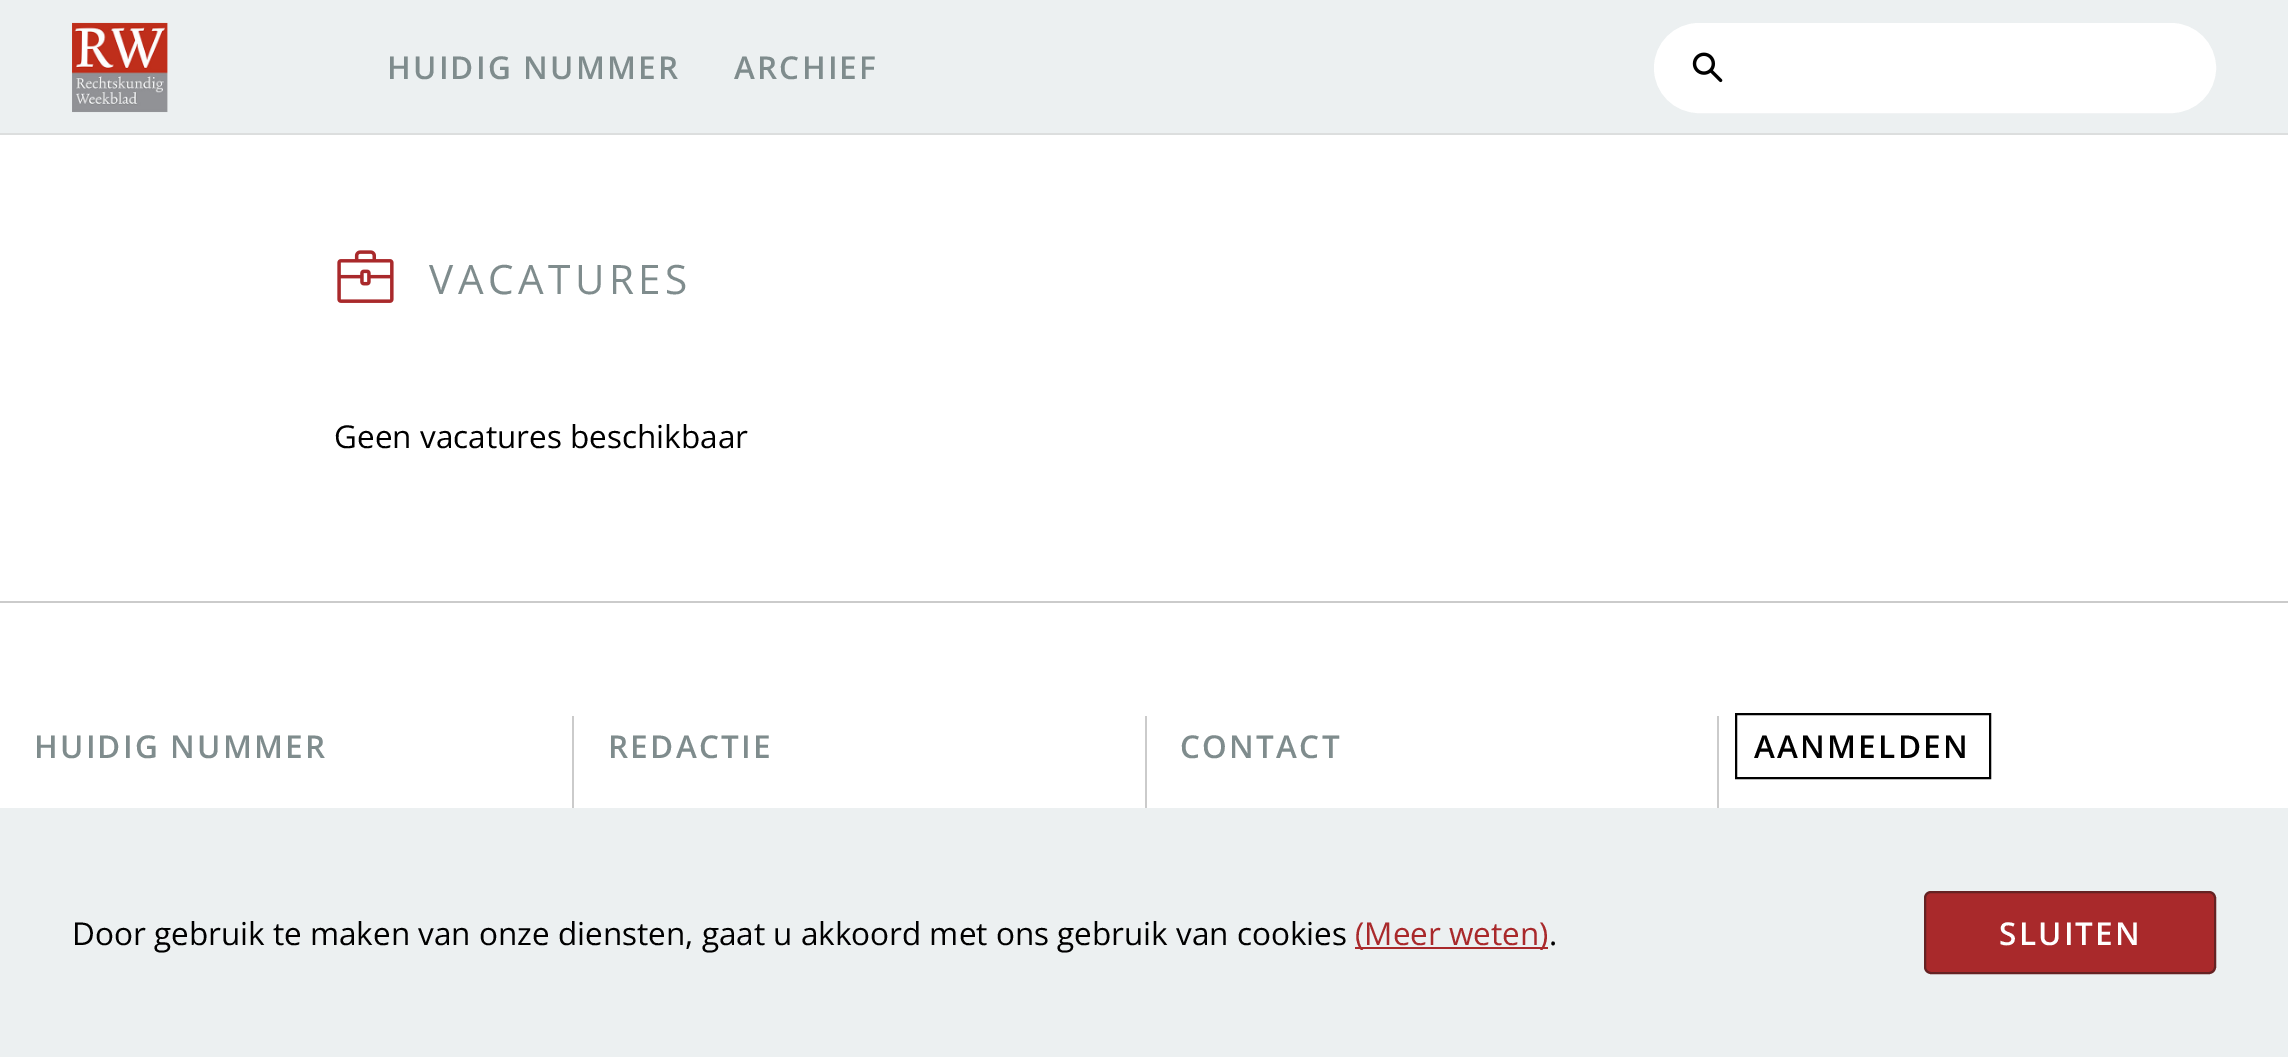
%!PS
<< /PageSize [2288 1057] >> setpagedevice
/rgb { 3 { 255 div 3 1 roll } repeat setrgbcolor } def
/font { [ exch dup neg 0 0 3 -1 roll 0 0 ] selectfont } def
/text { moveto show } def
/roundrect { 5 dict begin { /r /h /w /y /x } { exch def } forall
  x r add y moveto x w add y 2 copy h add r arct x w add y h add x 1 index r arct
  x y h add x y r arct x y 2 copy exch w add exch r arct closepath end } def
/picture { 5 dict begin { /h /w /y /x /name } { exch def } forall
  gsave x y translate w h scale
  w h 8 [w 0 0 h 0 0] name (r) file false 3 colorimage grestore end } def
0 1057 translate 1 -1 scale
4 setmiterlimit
255 255 255 rgb
0 0 2288 1057 rectfill
236 240 241 rgb
0 0 2288 133 rectfill
220 222 222 rgb
0 133 2288 2 rectfill
(img_01.rgb) 72 22 96 91 picture
255 255 255 rgb
1655 24 560 88 44 roundrect gsave fill grestore
2 setlinewidth
stroke
(img_02.rgb) 1692 52 31 31 picture
(img_03.rgb) 337 250 57 53 picture
236 240 241 rgb
0 808 2288 249 rectfill
169 41 43 rgb
1355 947 193 2 rectfill
1925 892 290 81 6 roundrect gsave fill grestore
101 34 35 rgb
stroke
203 203 203 rgb
0 601 2288 2 rectfill
572 716 2 92 rectfill
1145 716 2 92 rectfill
1717 716 2 92 rectfill
0 0 0 rgb
1736 714 254 64 rectstroke
/OpenSans-SemiBold 31.5 font
127 140 141 rgb
387 79 moveto 2.25 0 (HUIDIG NUMMER) ashow
734 79 moveto 2.25 0 (ARCHIEF) ashow
/OpenSans-Regular 40.5 font
429 294 moveto 4.5 0 (VACATURES) ashow
/OpenSans-Regular 31.5 font
0 0 0 rgb
(Geen vacatures beschikbaar) 334 448 text
(Door gebruik te maken van onze diensten, gaat u akkoord met ons gebruik van cookies) 72 945 text
169 41 43 rgb
(\(Meer weten\)) 1355 945 text
0 0 0 rgb
(.) 1549 945 text
/OpenSans-SemiBold 31.5 font
255 255 255 rgb
1999 945 moveto 2.25 0 (SLUITEN) ashow
127 140 141 rgb
34 758 moveto 2.25 0 (HUIDIG NUMMER) ashow
608 758 moveto 2.25 0 (REDACTIE) ashow
1180 758 moveto 2.25 0 (CONTACT) ashow
0 0 0 rgb
1754 758 moveto 2.25 0 (AANMELDEN) ashow
showpage
